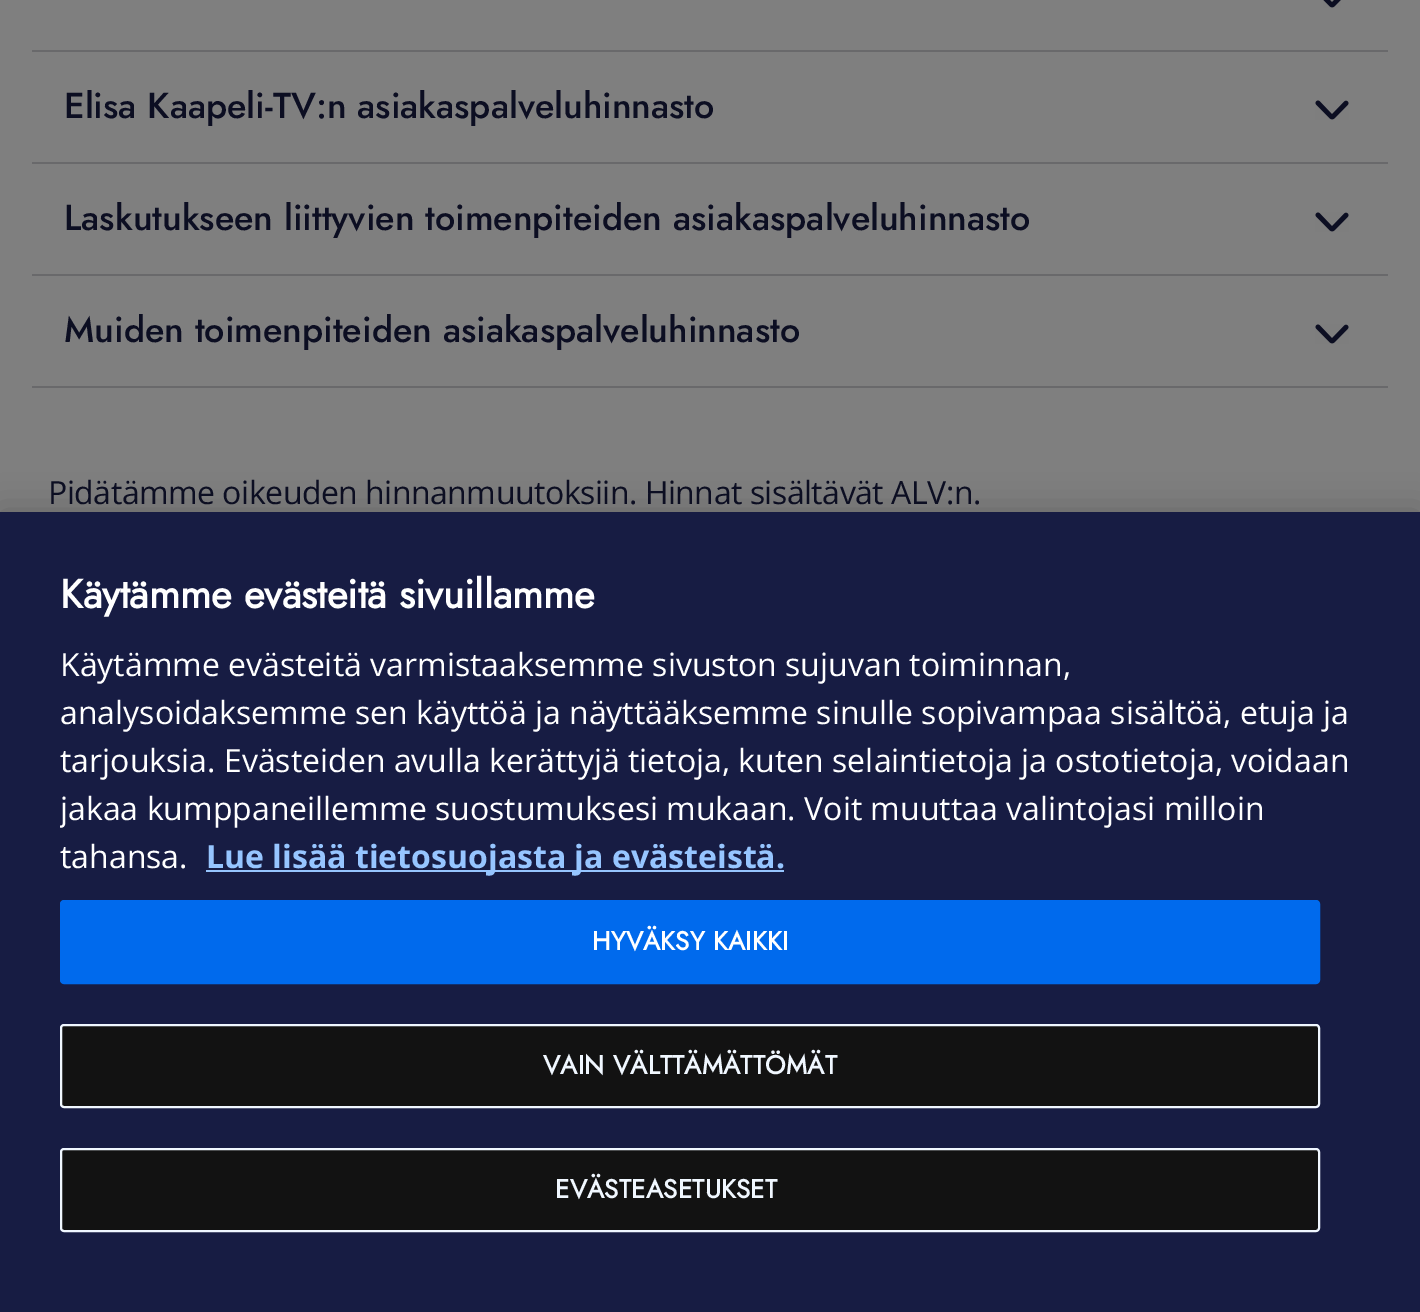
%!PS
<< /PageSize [1420 1312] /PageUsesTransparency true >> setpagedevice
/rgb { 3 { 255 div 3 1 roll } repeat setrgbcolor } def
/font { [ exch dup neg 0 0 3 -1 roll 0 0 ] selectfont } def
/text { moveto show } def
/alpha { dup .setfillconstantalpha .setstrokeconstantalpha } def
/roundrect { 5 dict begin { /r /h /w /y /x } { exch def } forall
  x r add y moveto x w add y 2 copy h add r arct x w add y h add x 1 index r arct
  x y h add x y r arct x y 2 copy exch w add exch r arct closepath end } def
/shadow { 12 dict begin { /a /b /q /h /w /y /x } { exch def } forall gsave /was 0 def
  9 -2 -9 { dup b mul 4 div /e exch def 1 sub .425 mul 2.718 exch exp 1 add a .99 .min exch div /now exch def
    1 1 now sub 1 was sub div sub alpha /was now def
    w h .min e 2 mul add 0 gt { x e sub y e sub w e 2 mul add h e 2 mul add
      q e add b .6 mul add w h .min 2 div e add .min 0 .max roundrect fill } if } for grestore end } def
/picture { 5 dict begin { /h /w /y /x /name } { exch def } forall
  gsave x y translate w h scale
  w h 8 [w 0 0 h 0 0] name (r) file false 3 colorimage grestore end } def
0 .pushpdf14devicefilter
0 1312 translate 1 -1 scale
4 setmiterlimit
127 127 127 rgb
0 0 1420 1312 rectfill
105 105 107 rgb
32 50 1356 2 rectfill
(img_01.rgb) 1323 0 18 8 picture
32 162 1356 2 rectfill
(img_02.rgb) 1315 100 34 20 picture
32 274 1356 2 rectfill
(img_02.rgb) 1315 212 34 20 picture
32 386 1356 2 rectfill
(img_02.rgb) 1315 324 34 20 picture
0 0 0 rgb
0 512 1420 800 0 18 0.2 shadow
23 28 67 rgb
0 512 1420 800 rectfill
150 197 255 rgb
206 870 578 2 rectfill
0 106 237 rgb
61 901 1258 82 3 roundrect gsave fill grestore
2 setlinewidth
stroke
18 18 18 rgb
61 1025 1258 82 3 roundrect gsave fill grestore
240 247 255 rgb
stroke
18 18 18 rgb
61 1149 1258 82 3 roundrect gsave fill grestore
240 247 255 rgb
stroke
/Jost-Medium 36 font
12 14 34 rgb
(Elisa Kaapeli-TV:n asiakaspalveluhinnasto) 64 118 text
(Laskutukseen liittyvien toimenpiteiden asiakaspalveluhinnasto) 64 230 text
(Muiden toimenpiteiden asiakaspalveluhinnasto) 64 342 text
/OpenSans-Regular 32 font
48 504 moveto -0.5 0 (Pidätämme oikeuden hinnanmuutoksiin. Hinnat sisältävät ALV:n.) ashow
/Jost-Bold 40 font
255 255 255 rgb
(Käytämme evästeitä sivuillamme) 60 608 text
/OpenSans-Regular 32 font
(Käytämme evästeitä varmistaaksemme sivuston sujuvan toiminnan,) 60 676 text
(analysoidaksemme sen käyttöä ja näyttääksemme sinulle sopivampaa sisältöä, etuja ja) 60 724 text
(tarjouksia. Evästeiden avulla kerättyjä tietoja, kuten selaintietoja ja ostotietoja, voidaan) 60 772 text
gsave
60 572 1300 308 rectclip
(jakaa kumppaneillemme suostumuksesi mukaan. Voit muuttaa valintojasi milloin) 60 820 text
grestore
(tahansa.) 60 868 text
/OpenSans-Bold 32 font
150 197 255 rgb
(Lue lisää tietosuojasta ja evästeistä.) 206 868 text
/Jost-Bold 26 font
255 255 255 rgb
592 950 moveto 0.25 0 (HYVÄKSY KAIKKI) ashow
240 247 255 rgb
543 1074 moveto 0.25 0 (VAIN VÄLTTÄMÄTTÖMÄT) ashow
555 1198 moveto 0.25 0 (EVÄSTEASETUKSET) ashow
.poppdf14devicefilter showpage
